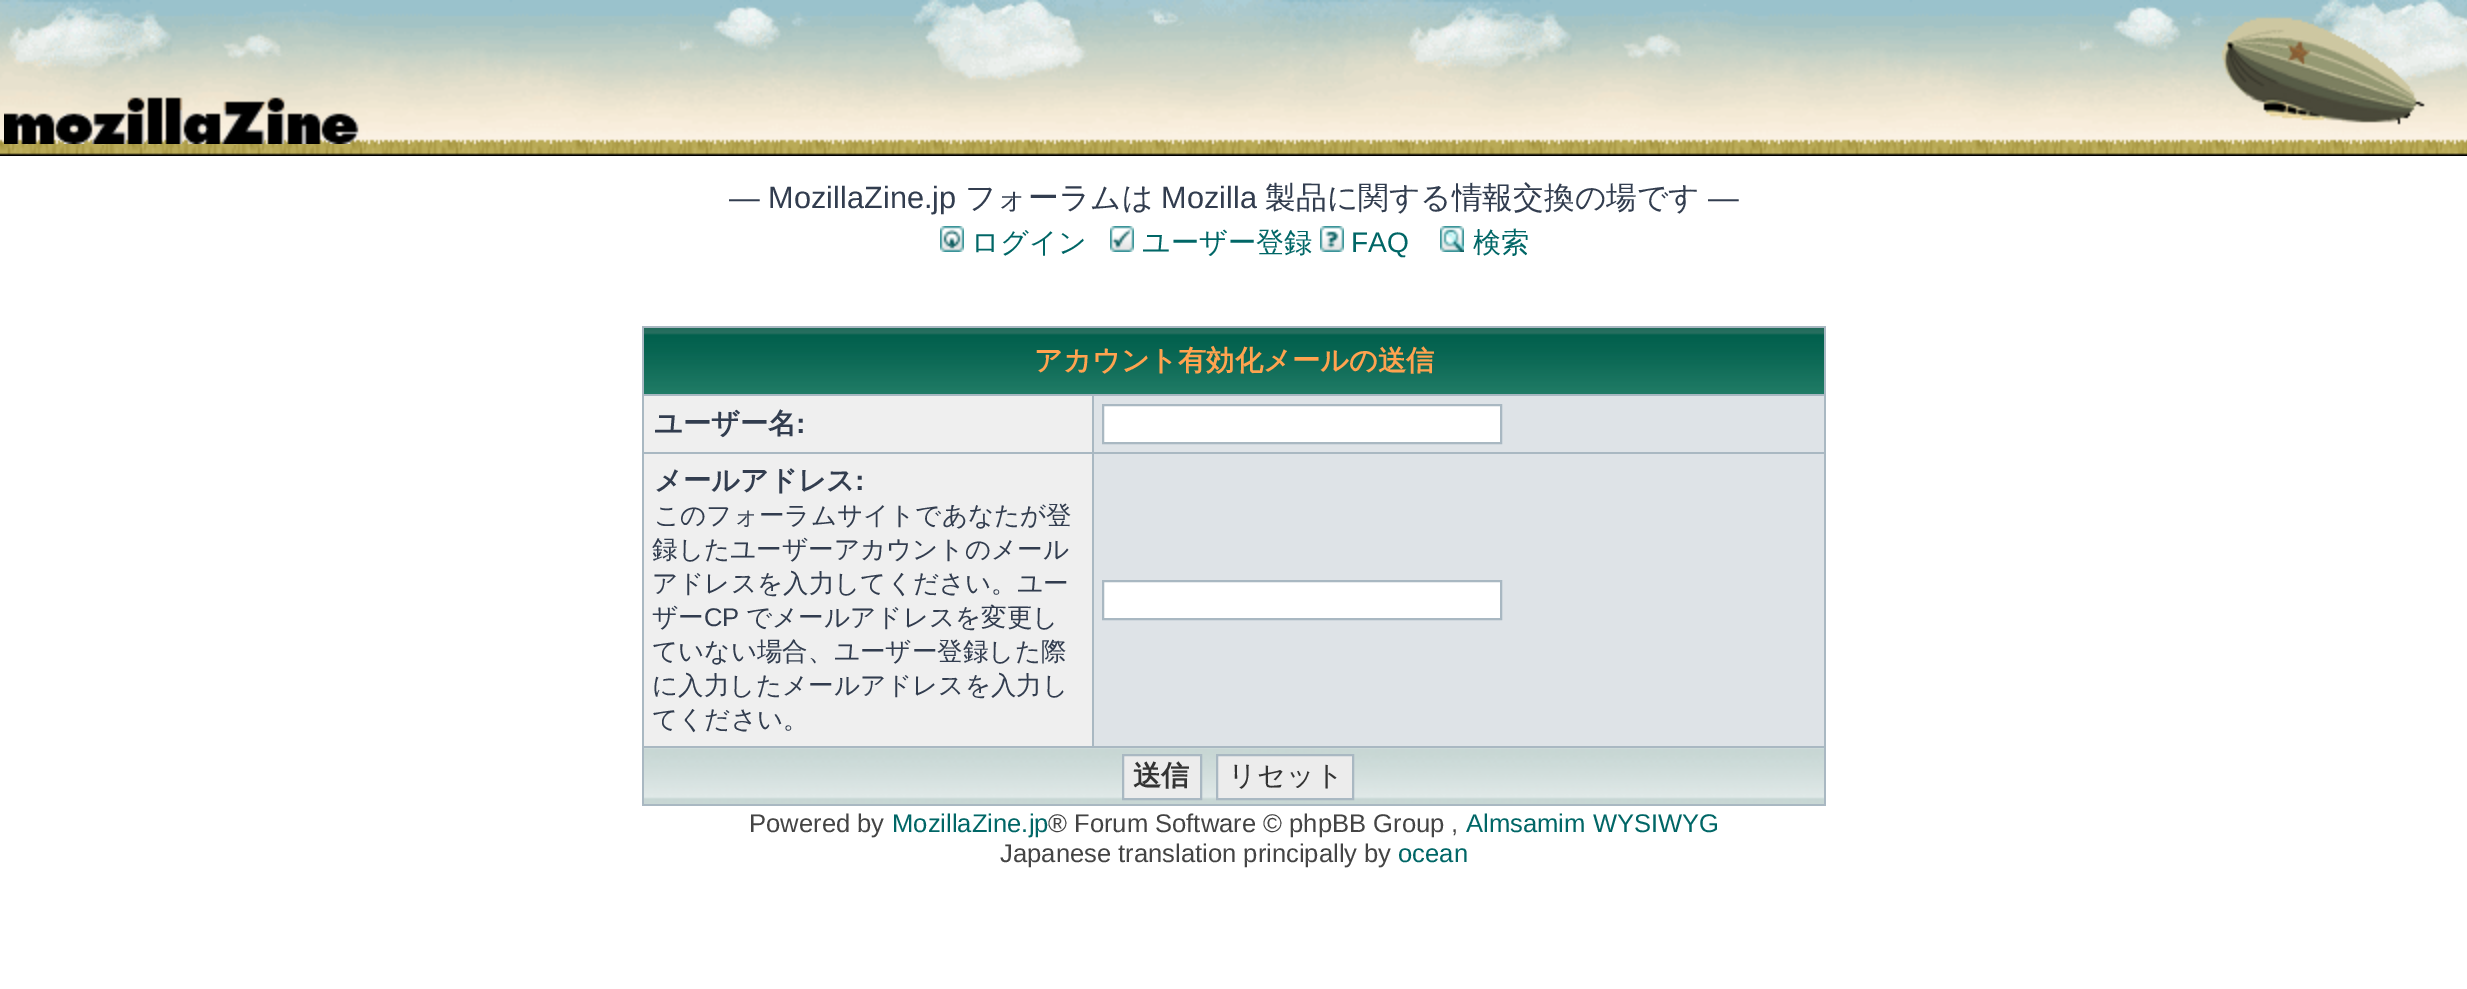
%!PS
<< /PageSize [2467 989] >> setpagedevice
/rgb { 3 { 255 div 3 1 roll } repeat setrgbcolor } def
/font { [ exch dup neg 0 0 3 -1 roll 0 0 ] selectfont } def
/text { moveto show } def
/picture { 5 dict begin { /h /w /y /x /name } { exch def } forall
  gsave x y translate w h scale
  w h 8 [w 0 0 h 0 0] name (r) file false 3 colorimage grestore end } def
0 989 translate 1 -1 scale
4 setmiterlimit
255 255 255 rgb
0 0 2467 989 rectfill
(img_01.rgb) 0 0 2467 156 picture
(img_02.rgb) 4 97 355 47 picture
(img_03.rgb) 2221 17 204 108 picture
(img_04.rgb) 940 226 24 26 picture
(img_05.rgb) 1110 226 24 26 picture
(img_06.rgb) 1320 226 24 26 picture
(img_07.rgb) 1440 226 24 26 picture
169 184 194 rgb
642 326 1184 480 rectfill
(img_08.rgb) 644 328 1180 66 picture
239 239 239 rgb
644 396 448 56 rectfill
222 227 231 rgb
1094 396 730 56 rectfill
255 255 255 rgb
1103 405 moveto 398 0 rlineto 0 38 rlineto -398 0 rlineto closepath gsave fill grestore
169 184 194 rgb
2 setlinewidth
stroke
239 239 239 rgb
644 454 448 292 rectfill
222 227 231 rgb
1094 454 730 292 rectfill
255 255 255 rgb
1103 581 moveto 398 0 rlineto 0 38 rlineto -398 0 rlineto closepath gsave fill grestore
169 184 194 rgb
stroke
(img_09.rgb) 644 748 1180 56 picture
236 236 236 rgb
1123 755 moveto 78 0 rlineto 0 44 rlineto -78 0 rlineto closepath gsave fill grestore
169 184 194 rgb
stroke
236 236 236 rgb
1217 755 moveto 136 0 rlineto 0 44 rlineto -136 0 rlineto closepath gsave fill grestore
169 184 194 rgb
stroke
/LiberationSans-Regular 30.75 font
50 61 79 rgb
(― MozillaZine.jp) 729 208 text
/WenQuanYiZenHei-Medium 30.75 font
(フォーラムは) 965 208 text
/LiberationSans-Regular 30.75 font
(Mozilla) 1161 208 text
/WenQuanYiZenHei-Medium 30.75 font
(製品に関する情報交換の場です) 1265 208 text
/LiberationSans-Regular 30.75 font
(―) 1708 208 text
/WenQuanYiZenHei-Medium 28.2 font
0 102 102 rgb
(ログイン) 971 252 text
(ユーザー登録) 1142 252 text
/LiberationSans-Regular 28.2 font
(FAQ) 1351 252 text
/WenQuanYiZenHei-Medium 28.2 font
(検索) 1473 252 text
/WenQuanYiZenHei-Bold 28.2 font
255 163 79 rgb
(アカウント有効化メールの送信) 1034 370 text
50 61 79 rgb
(ユーザー名) 654 433 text
/LiberationSans-Bold 28.2 font
(:) 796 433 text
/WenQuanYiZenHei-Bold 28.2 font
(メールアドレス) 654 490 text
/LiberationSans-Bold 28.2 font
(:) 855 490 text
/WenQuanYiZenHei-Medium 25.6 font
(このフォーラムサイトであなたが登) 654 524 text
(録したユーザーアカウントのメール) 652 558 text
(アドレスを入力してください。ユー) 652 592 text
(ザー) 652 626 text
/LiberationSans-Regular 25.6 font
(CP) 704 626 text
/WenQuanYiZenHei-Medium 25.6 font
(でメールアドレスを変更し) 746 626 text
(ていない場合、ユーザー登録した際) 652 660 text
(に入力したメールアドレスを入力し) 652 694 text
(てください。) 652 728 text
/WenQuanYiZenHei-Bold 28.2 font
51 51 51 rgb
(送信) 1133 785 text
/WenQuanYiZenHei-Medium 28.2 font
(リセット) 1228 785 text
/LiberationSans-Regular 25.6 font
68 68 68 rgb
(Powered by) 749 832 text
0 102 102 rgb
(MozillaZine.jp) 892 832 text
68 68 68 rgb
(® Forum Software © phpBB Group ,) 1048 832 text
0 102 102 rgb
(Almsamim WYSIWYG) 1466 832 text
68 68 68 rgb
(Japanese translation principally by) 1000 862 text
0 102 102 rgb
(ocean) 1398 862 text
showpage
